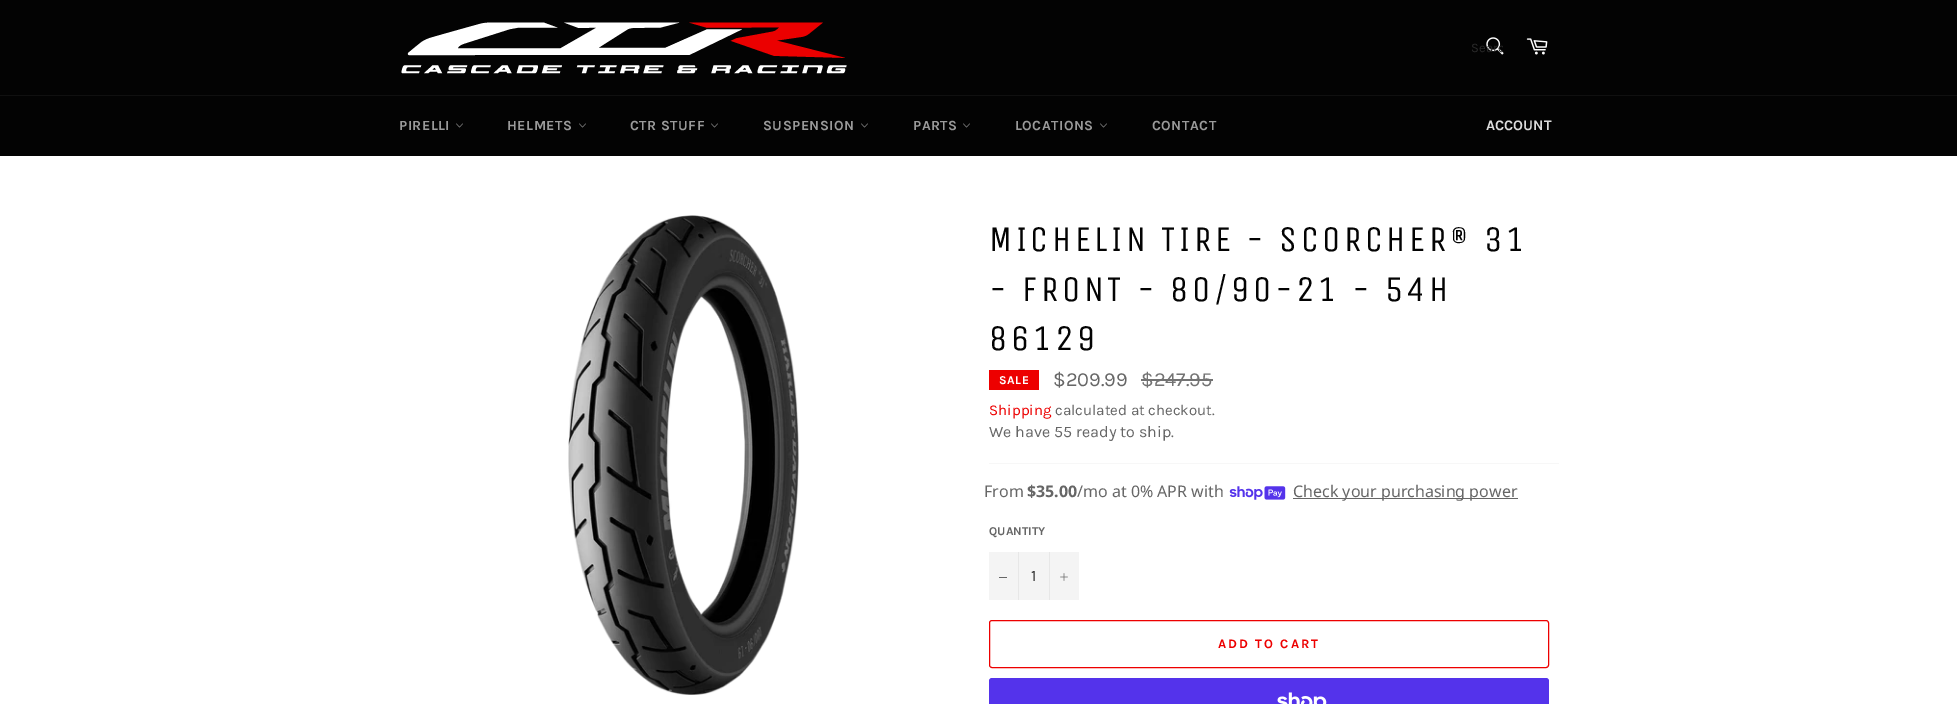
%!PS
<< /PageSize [1957 704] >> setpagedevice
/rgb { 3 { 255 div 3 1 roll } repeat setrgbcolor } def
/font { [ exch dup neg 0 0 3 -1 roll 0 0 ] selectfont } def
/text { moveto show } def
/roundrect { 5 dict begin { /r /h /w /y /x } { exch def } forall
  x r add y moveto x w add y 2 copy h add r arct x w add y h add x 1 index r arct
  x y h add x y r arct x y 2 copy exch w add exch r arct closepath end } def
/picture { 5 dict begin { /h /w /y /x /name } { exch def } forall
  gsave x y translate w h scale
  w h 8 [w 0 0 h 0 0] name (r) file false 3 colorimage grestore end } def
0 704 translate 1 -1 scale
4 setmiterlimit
3 3 3 rgb
0 0 1957 704 rectfill
(img_01.rgb) 401 22 446 52 picture
(img_02.rgb) 1486 37 18 18 picture
(img_03.rgb) 1526 38 22 17 picture
16 16 16 rgb
0 95 1957 1 rectfill
(img_04.rgb) 456 123 7 5 picture
(img_04.rgb) 579 123 7 5 picture
(img_04.rgb) 711 123 7 5 picture
(img_04.rgb) 861 123 7 5 picture
(img_04.rgb) 963 123 7 5 picture
(img_04.rgb) 1100 123 7 5 picture
255 255 255 rgb
0 156 1957 548 rectfill
(img_05.rgb) 568 215 231 480 picture
237 0 0 rgb
989 370 50 20 rectfill
115 115 115 rgb
1141 379 72 2 rectfill
247 247 247 rgb
989 463 570 1 rectfill
(img_06.rgb) 1229 486 57 14 picture
102 102 102 rgb
1293 498 225 1 rectfill
244 244 244 rgb
989 552 90 48 rectfill
231 231 231 rgb
1018 552 1 48 rectfill
102 102 102 rgb
999 577 8 1 rectfill
231 231 231 rgb
1049 552 1 48 rectfill
(img_07.rgb) 1060 573 8 8 picture
237 0 0 rgb
989.5 620.5 559 47 2.5 roundrect stroke
84 51 235 rgb
989 678 560 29 3 roundrect fill
(img_08.rgb) 1277 692 50 12 picture
gsave
1471 40 32 15 rectclip
/Karla-Regular 13 font
41 41 41 rgb
(Searc) 1471 52 text
grestore
/Karla-Bold 14 font
154 154 154 rgb
399 130 moveto 0.5 0 (PIRELLI) ashow
507 130 moveto 0.5 0 (HELMETS) ashow
630 130 moveto 0.5 0 (CTR STUFF) ashow
763 130 moveto 0.5 0 (SUSPENSION) ashow
913 130 moveto 0.5 0 (PARTS) ashow
1015 130 moveto 0.5 0 (LOCATIONS) ashow
1152 130 moveto 0.5 0 (CONTACT) ashow
/Karla-Bold 14.5 font
221 221 221 rgb
(ACCOUNT) 1486 130 text
/UnicaOne-Regular 36 font
3 3 3 rgb
989 251 moveto 3.6 0 (MICHELIN TIRE - SCORCHER® 31) ashow
989 301 moveto 3.6 0 (- FRONT - 80/90-21 - 54H) ashow
989 350 moveto 3.6 0 (86129) ashow
/Karla-Bold 12 font
255 255 255 rgb
999 384 moveto 0.5 0 (SALE) ashow
/Karla-Regular 20 font
102 102 102 rgb
($209.99) 1053 386 text
115 115 115 rgb
($247.95) 1141 386 text
/Karla-Regular 15 font
237 0 0 rgb
(Shipping) 989 415 text
102 102 102 rgb
(calculated at checkout.) 1055 415 text
/Karla-Regular 16 font
(We have 55 ready to ship.) 989 437 text
/NotoSans-Regular 16 font
(From) 984 497 text
/NotoSans-Bold 16 font
($35.00) 1027 497 text
/NotoSans-Regular 16 font
(/mo at 0% APR with) 1077 497 text
(Check your purchasing power) 1293 497 text
/Karla-Bold 12 font
(QUANTITY) 989 535 text
/Karla-Regular 16 font
51 51 51 rgb
(1) 1031 581 text
/Karla-Bold 13 font
237 0 0 rgb
1218 648 moveto 2 0 (ADD TO CART) ashow
showpage
